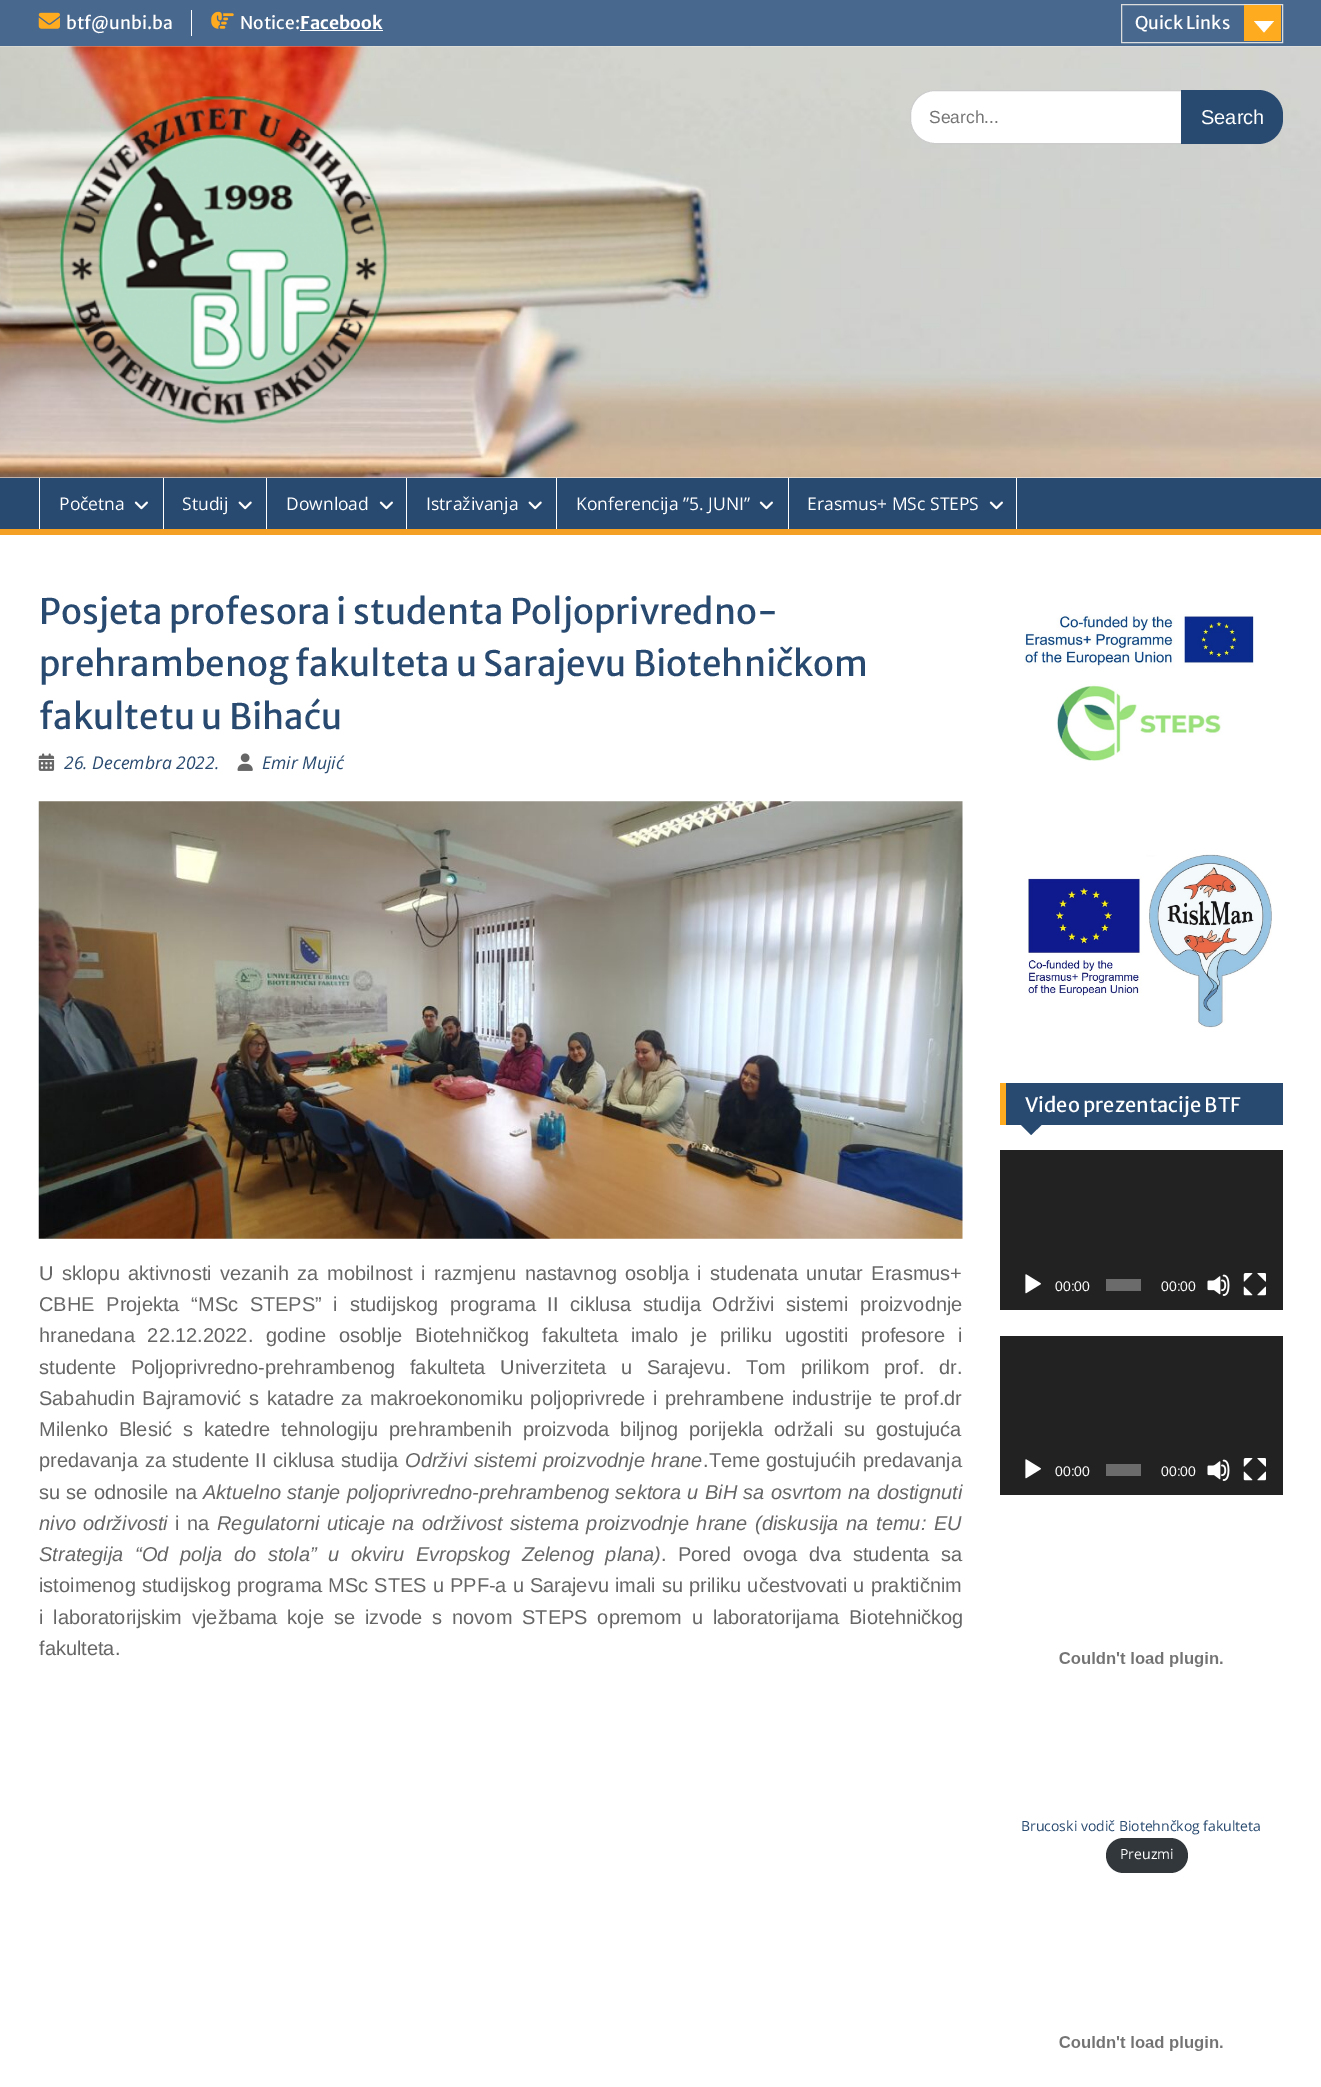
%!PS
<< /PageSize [1321 2087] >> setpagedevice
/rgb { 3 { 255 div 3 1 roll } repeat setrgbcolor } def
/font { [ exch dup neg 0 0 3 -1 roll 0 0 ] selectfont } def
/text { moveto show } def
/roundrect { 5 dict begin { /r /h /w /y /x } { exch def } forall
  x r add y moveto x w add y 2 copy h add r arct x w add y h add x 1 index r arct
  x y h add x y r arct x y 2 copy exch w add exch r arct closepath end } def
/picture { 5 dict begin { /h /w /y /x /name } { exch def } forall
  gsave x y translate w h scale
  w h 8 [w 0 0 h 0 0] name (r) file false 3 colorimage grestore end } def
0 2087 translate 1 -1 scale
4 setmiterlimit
255 255 255 rgb
0 0 1321 2087 rectfill
73 104 142 rgb
0 0 1321 46 rectfill
(img_01.rgb) 38 12 22 17 picture
255 255 255 rgb
191 10 1 26 rectfill
(img_02.rgb) 211 11 23 18 picture
300 30 83 1 rectfill
221 221 221 rgb
1121.5 4.5 161 38 rectstroke
255 171 31 rgb
1244 5 37 36 rectfill
255 255 255 rgb
1254 21 moveto 20 0 rlineto -10 11.5 rlineto closepath fill
(img_03.rgb) 0 46 1321 432 picture
(img_04.rgb) 59 96 329 328 picture
910.5 90.5 372 53 24.5 roundrect gsave fill grestore
204 204 204 rgb
stroke
41 74 112 rgb
1181 90 moveto 77 0 rlineto 14 0 25 11 25 25 rcurveto 0 4 rlineto 0 14 -11 25 -25 25 rcurveto -77 0 rlineto closepath fill
0 478 1321 51 rectfill
244 160 36 rgb
0 529 1321 6 rectfill
255 255 255 rgb
163 478 1 51 rectfill
39 478 1 51 rectfill
(img_05.rgb) 134 501 14 9 picture
266 478 1 51 rectfill
(img_06.rgb) 238 501 14 9 picture
406 478 1 51 rectfill
(img_05.rgb) 379 501 14 9 picture
556 478 1 51 rectfill
(img_06.rgb) 528 501 14 9 picture
788 478 1 51 rectfill
(img_05.rgb) 759 501 14 9 picture
1016 478 1 51 rectfill
(img_05.rgb) 989 501 14 9 picture
(img_07.rgb) 38 753 17 18 picture
(img_08.rgb) 237 753 16 18 picture
(img_09.rgb) 38 801 925 438 picture
(img_10.rgb) 1024 614 230 147 picture
(img_11.rgb) 1028 854 244 174 picture
41 74 112 rgb
1006 1083 277 42 rectfill
255 171 31 rgb
1000 1083 6 42 rectfill
41 74 112 rgb
1020 1124 moveto 22.5 0 rlineto -11.5 11 rlineto closepath fill
34 34 34 rgb
1000 1150 283 160 rectfill
(img_12.rgb) 1025 1274 16 20 picture
107 107 107 rgb
1106 1279 35 12 rectfill
(img_13.rgb) 1207 1274 23 22 picture
(img_14.rgb) 1243 1273 23 23 picture
34 34 34 rgb
1000 1336 283 159 rectfill
(img_12.rgb) 1025 1459 16 20 picture
107 107 107 rgb
1106 1464 35 12 rectfill
(img_13.rgb) 1207 1459 23 22 picture
(img_14.rgb) 1243 1458 23 23 picture
(img_15.rgb) 1059 1652 164 15 picture
50 55 60 rgb
1106 1838 82 35 17.5 roundrect fill
(img_15.rgb) 1059 2036 164 15 picture
/MerriweatherSans-Regular 17.5 font
255 255 255 rgb
(btf@unbi.ba) 66 29 text
(Notice:) 240 29 text
/MerriweatherSans-Bold 17.5 font
(Facebook) 300 29 text
/MerriweatherSans-Regular 17.5 font
(Quick Links) 1135 29 text
/LiberationSans-Regular 17.5 font
117 117 117 rgb
(Search...) 929 123 text
/LiberationSans-Regular 20 font
255 255 255 rgb
(Search) 1201 124 text
/OpenSans-Regular 17.5 font
(Početna) 59 510 text
(Studij) 182 510 text
(Download) 286 510 text
(Istraživanja) 426 510 text
(Konferencija ”5. JUNI”) 576 510 text
(Erasmus+ MSc STEPS) 807 510 text
/MerriweatherSans-Regular 35 font
41 74 112 rgb
(Posjeta profesora i studenta Poljoprivredno-) 39 624 text
(prehrambenog fakulteta u Sarajevu Biotehničkom) 39 676 text
(fakultetu u Bihaću) 39 729 text
/OpenSans-Italic 17.5 font
(26. Decembra 2022.) 64 769 text
(Emir Mujić) 262 769 text
/LiberationSans-Regular 20 font
102 102 102 rgb
39 1280 moveto 2.9 0 32 (U sklopu aktivnosti vezanih za mobilnost i razmjenu nastavnog osoblja i studenata unutar Erasmus+) widthshow
39 1311 moveto 6.1 0 32 (CBHE Projekta “MSc STEPS” i studijskog programa II ciklusa studija Održivi sistemi proizvodnje) widthshow
39 1342 moveto 7.25 0 32 (hranedana 22.12.2022. godine osoblje Biotehničkog fakulteta imalo je priliku ugostiti profesore i) widthshow
39 1374 moveto 9.25 0 32 (studente Poljoprivredno-prehrambenog fakulteta Univerziteta u Sarajevu. Tom prilikom prof. dr.) widthshow
39 1405 moveto 2.25 0 32 (Sabahudin Bajramović s katadre za makroekonomiku poljoprivrede i prehrambene industrije te prof.dr) widthshow
39 1436 moveto 5.25 0 32 (Milenko Blesić s katedre tehnologiju prehrambenih proizvoda biljnog porijekla održali su gostujuća) widthshow
39 1467 moveto 1 0 32 (predavanja za studente II ciklusa studija) widthshow
/LiberationSans-Italic 20 font
405 1467 moveto 1 0 32 (Održivi sistemi proizvodnje hrane) widthshow
/LiberationSans-Regular 20 font
703 1467 moveto 1 0 32 (.Teme gostujućih predavanja) widthshow
39 1499 moveto 0.75 0 32 (su se odnosile na) widthshow
/LiberationSans-Italic 20 font
203 1499 moveto 0.75 0 32 (Aktuelno stanje poljoprivredno-prehrambenog sektora u BiH sa osvrtom na dostignuti) widthshow
39 1530 moveto 2.1 0 32 (nivo održivosti) widthshow
/LiberationSans-Regular 20 font
175 1530 moveto 2.1 0 32 (i na) widthshow
/LiberationSans-Italic 20 font
217 1530 moveto 2.1 0 32 (Regulatorni uticaje na održivost sistema proizvodnje hrane \(diskusija na temu: EU) widthshow
39 1561 moveto 6 0 32 (Strategija “Od polja do stola” u okviru Evropskog Zelenog plana\)) widthshow
/LiberationSans-Regular 20 font
(.) 661 1561 text
678 1561 moveto 6 0 32 (Pored ovoga dva studenta sa) widthshow
39 1592 moveto 0.5 0 32 (istoimenog studijskog programa MSc STES u PPF-a u Sarajevu imali su priliku učestvovati u praktičnim) widthshow
39 1624 moveto 4.25 0 32 (i laboratorijskim vježbama koje se izvode s novom STEPS opremom u laboratorijama Biotehničkog) widthshow
(fakulteta.) 39 1655 text
/MerriweatherSans-Regular 20 font
255 255 255 rgb
(Video prezentacije BTF) 1025 1112 text
/LiberationSans-Regular 14 font
(00:00) 1055 1291 text
(00:00) 1161 1291 text
(00:00) 1055 1476 text
(00:00) 1161 1476 text
/OpenSans-Regular 14 font
41 74 112 rgb
(Brucoski vodič Biotehnčkog fakulteta) 1021 1831 text
255 255 255 rgb
(Preuzmi) 1120 1859 text
showpage
